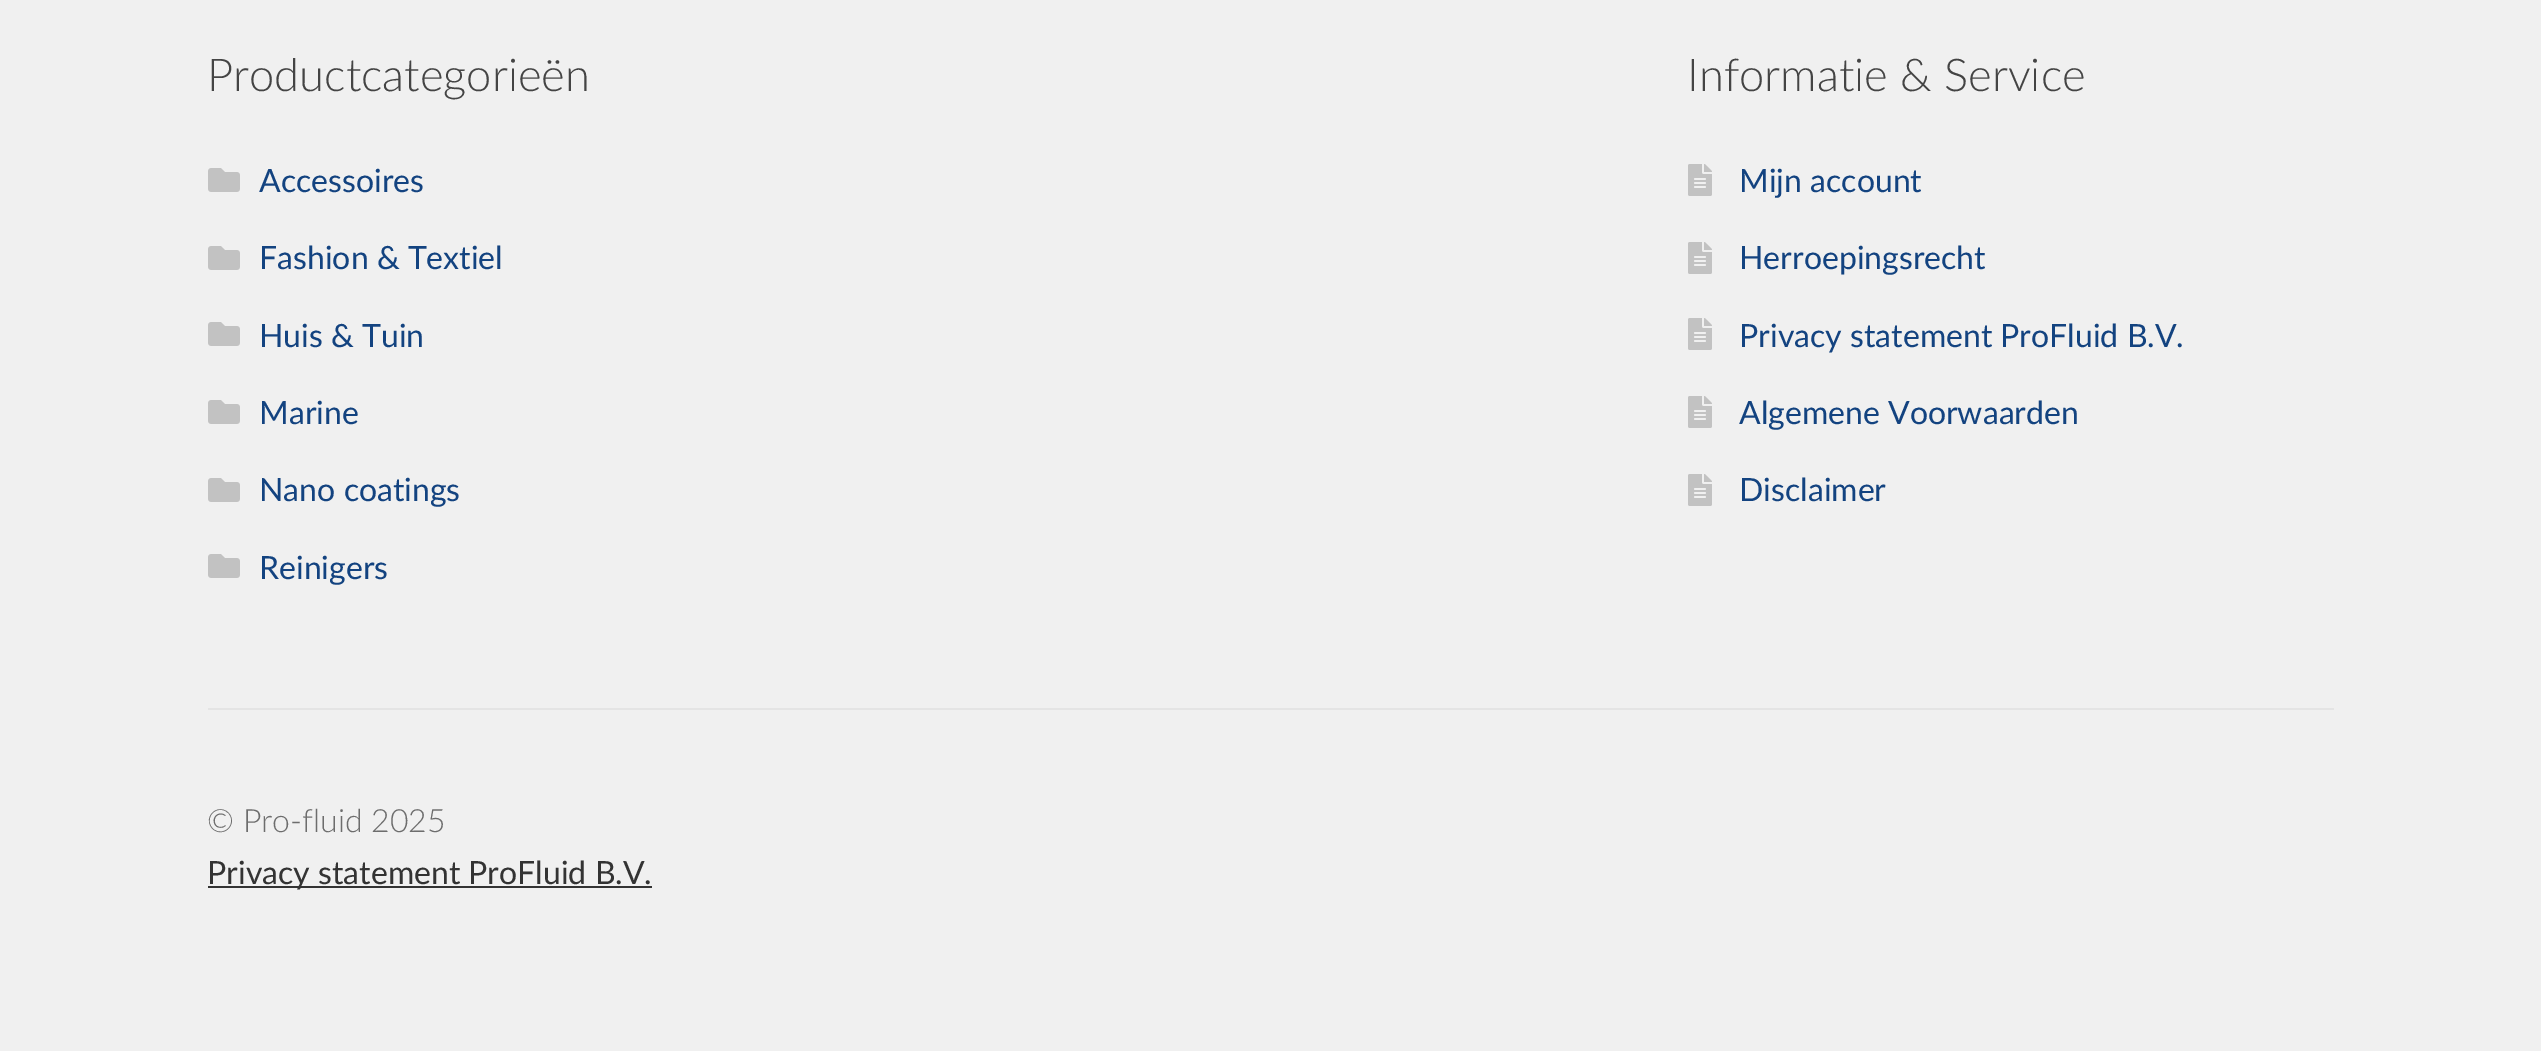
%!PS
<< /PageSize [2541 1051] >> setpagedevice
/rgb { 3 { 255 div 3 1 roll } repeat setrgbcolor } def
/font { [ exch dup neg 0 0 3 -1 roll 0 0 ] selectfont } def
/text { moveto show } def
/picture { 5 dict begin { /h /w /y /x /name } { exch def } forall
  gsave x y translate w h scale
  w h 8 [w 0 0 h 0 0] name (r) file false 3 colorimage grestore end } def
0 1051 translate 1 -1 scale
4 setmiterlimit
240 240 240 rgb
0 0 2541 1051 rectfill
228 228 228 rgb
208 708 2126 2 rectfill
(img_01.rgb) 208 168 32 24 picture
(img_01.rgb) 208 246 32 24 picture
(img_01.rgb) 208 322 32 24 picture
(img_01.rgb) 208 400 32 24 picture
(img_01.rgb) 208 478 32 24 picture
(img_01.rgb) 208 554 32 24 picture
(img_02.rgb) 1688 164 24 32 picture
(img_02.rgb) 1688 242 24 32 picture
(img_02.rgb) 1688 318 24 32 picture
(img_02.rgb) 1688 396 24 32 picture
(img_02.rgb) 1688 474 24 32 picture
51 51 51 rgb
208 886 444 2 rectfill
/Lato-Light 45.25 font
68 68 68 rgb
(Productcategorieën) 207 91 text
/Lato-Regular 32 font
19 67 128 rgb
(Accessoires) 259 192 text
(Fashion & Textiel) 259 269 text
(Huis & Tuin) 259 347 text
(Marine) 259 424 text
(Nano coatings) 259 501 text
(Reinigers) 259 579 text
/Lato-Light 45.25 font
68 68 68 rgb
(Informatie & Service) 1687 91 text
/Lato-Regular 32 font
19 67 128 rgb
(Mijn account) 1739 192 text
(Herroepingsrecht) 1739 269 text
(Privacy statement ProFluid B.V.) 1739 347 text
(Algemene Voorwaarden) 1739 424 text
(Disclaimer) 1739 501 text
/Lato-Light 32 font
109 109 109 rgb
(© Pro-fluid 2025) 207 832 text
/Lato-Regular 32 font
51 51 51 rgb
(Privacy statement ProFluid B.V.) 207 884 text
showpage
